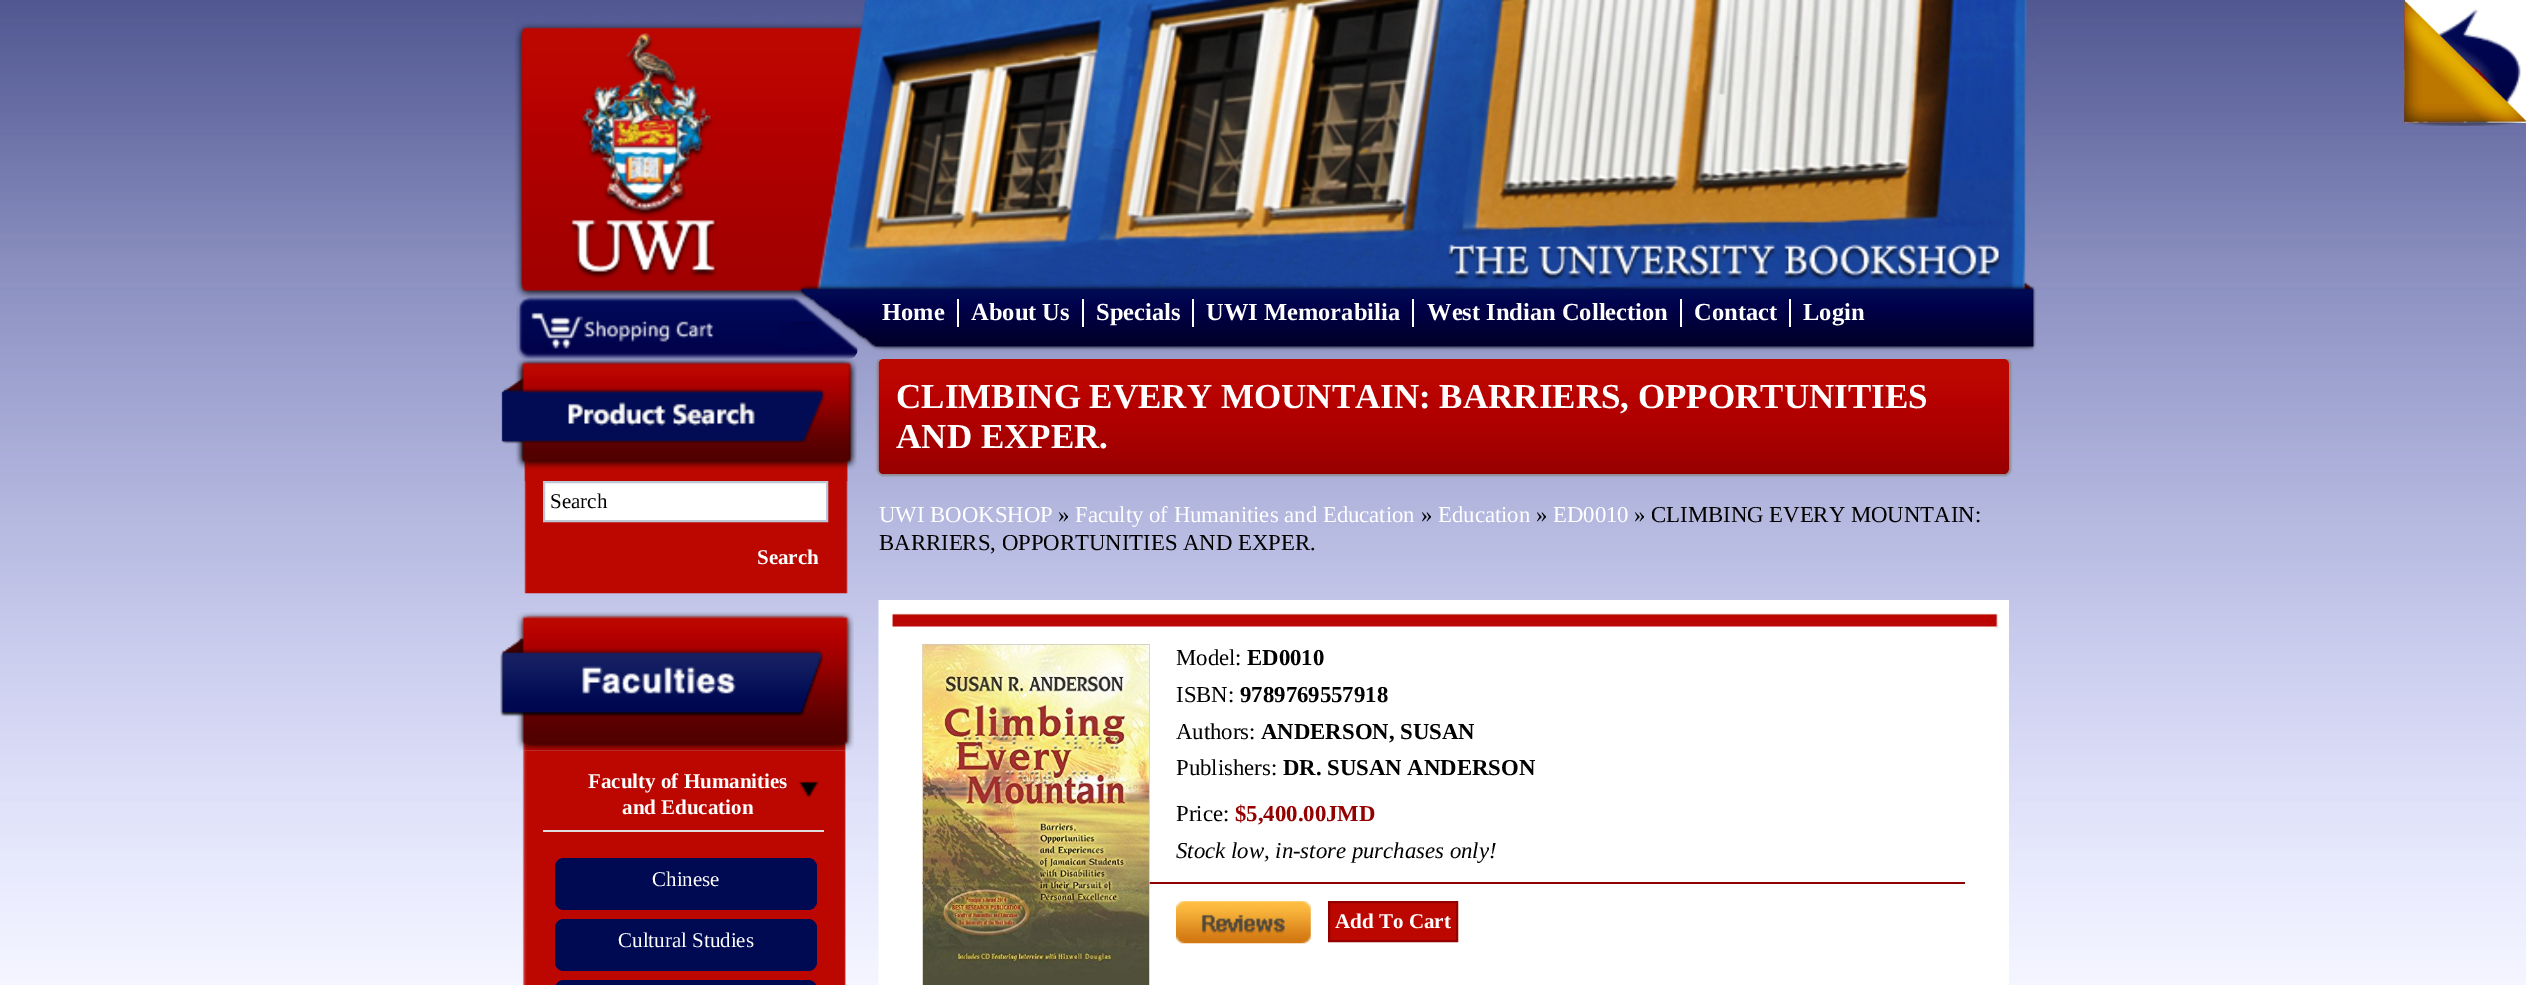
%!PS
<< /PageSize [2526 985] /PageUsesTransparency true >> setpagedevice
/rgb { 3 { 255 div 3 1 roll } repeat setrgbcolor } def
/font { [ exch dup neg 0 0 3 -1 roll 0 0 ] selectfont } def
/text { moveto show } def
/alpha { dup .setfillconstantalpha .setstrokeconstantalpha } def
/roundrect { 5 dict begin { /r /h /w /y /x } { exch def } forall
  x r add y moveto x w add y 2 copy h add r arct x w add y h add x 1 index r arct
  x y h add x y r arct x y 2 copy exch w add exch r arct closepath end } def
/shadow { 12 dict begin { /a /b /q /h /w /y /x } { exch def } forall gsave /was 0 def
  9 -2 -9 { dup b mul 4 div /e exch def 1 sub .425 mul 2.718 exch exp 1 add a .99 .min exch div /now exch def
    1 1 now sub 1 was sub div sub alpha /was now def
    w h .min e 2 mul add 0 gt { x e sub y e sub w e 2 mul add h e 2 mul add
      q e add b .6 mul add w h .min 2 div e add .min 0 .max roundrect fill } if } for grestore end } def
/picture { 5 dict begin { /h /w /y /x /name } { exch def } forall
  gsave x y translate w h scale
  w h 8 [w 0 0 h 0 0] name (r) file false 3 colorimage grestore end } def
0 .pushpdf14devicefilter
0 985 translate 1 -1 scale
4 setmiterlimit
255 255 255 rgb
0 0 2526 985 rectfill
(img_01.rgb) 0 0 2526 985 picture
2405 0 121 123 rectfill
(img_02.rgb) 2404 8 117 115 picture
(img_03.rgb) 2404 0 122 126 picture
(img_04.rgb) 514 0 1522 352 picture
(img_05.rgb) 569 33 148 246 picture
(img_06.rgb) 516 297 342 62 picture
(img_07.rgb) 531 312 183 37 picture
957 299 2 28 rectfill
1082 299 2 28 rectfill
1192 299 2 28 rectfill
1412 299 2 28 rectfill
1680 299 2 28 rectfill
1789 299 2 28 rectfill
(img_08.rgb) 501 359 356 123 picture
(img_09.rgb) 501 359 356 114 picture
(img_10.rgb) 524 472 324 122 picture
544 482 moveto 283 0 rlineto 0 39 rlineto -283 0 rlineto closepath gsave fill grestore
189 199 216 rgb
2 setlinewidth
stroke
(img_11.rgb) 500 612 354 139 picture
(img_12.rgb) 522 750 324 235 picture
(img_13.rgb) 799 781 21 16 picture
221 221 221 rgb
543 830 281 2 rectfill
0 10 83 rgb
555 858 262 52 9 roundrect fill
555 919 262 52 9 roundrect fill
555 980 262 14 9 roundrect fill
gsave
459 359 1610 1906 rectclip
136 136 136 rgb
877 357 1134 119 7 1 1 shadow
grestore
(img_14.rgb) 878 359 1131 116 picture
255 255 255 rgb
879 600 1130 385 rectfill
(img_15.rgb) 878 600 1121 385 picture
143 0 0 rgb
922 882 1043 2 rectfill
(img_16.rgb) 922 644 228 341 picture
(img_17.rgb) 1176 901 135 43 picture
188 7 0 rgb
1329 902 moveto 128 0 rlineto 0 39 rlineto -128 0 rlineto closepath gsave fill grestore
148 0 0 rgb
stroke
/LiberationSerif-Bold 24.5 font
255 255 255 rgb
(Home) 882 320 text
(About Us) 971 320 text
(Specials) 1096 320 text
(UWI Memorabilia) 1206 320 text
(West Indian Collection) 1427 320 text
(Contact) 1694 320 text
(Login) 1803 320 text
/LiberationSerif-Regular 21 font
0 0 0 rgb
(Search) 550 508 text
/LiberationSerif-Bold 21 font
255 255 255 rgb
(Search) 757 564 text
(Faculty of Humanities) 588 788 text
(and Education) 622 814 text
/LiberationSerif-Regular 21 font
(Chinese) 652 886 text
(Cultural Studies) 618 947 text
/LiberationSerif-Bold 35 font
(CLIMBING EVERY MOUNTAIN: BARRIERS, OPPORTUNITIES) 896 408 text
(AND EXPER.) 896 448 text
/LiberationSerif-Regular 22.75 font
(UWI BOOKSHOP) 879 522 text
0 0 0 rgb
(») 1058 522 text
255 255 255 rgb
(Faculty of Humanities and Education) 1075 522 text
0 0 0 rgb
(») 1421 522 text
255 255 255 rgb
(Education) 1438 522 text
0 0 0 rgb
(») 1536 522 text
255 255 255 rgb
(ED0010) 1553 522 text
0 0 0 rgb
(» CLIMBING EVERY MOUNTAIN:) 1634 522 text
(BARRIERS, OPPORTUNITIES AND EXPER.) 879 550 text
(Model:) 1176 665 text
/LiberationSerif-Bold 22.75 font
(ED0010) 1247 665 text
/LiberationSerif-Regular 22.75 font
(ISBN:) 1176 702 text
/LiberationSerif-Bold 22.75 font
(9789769557918) 1240 702 text
/LiberationSerif-Regular 22.75 font
(Authors:) 1176 739 text
/LiberationSerif-Bold 22.75 font
(ANDERSON, SUSAN) 1261 739 text
/LiberationSerif-Regular 22.75 font
(Publishers:) 1176 775 text
/LiberationSerif-Bold 22.75 font
(DR. SUSAN ANDERSON) 1283 775 text
/LiberationSerif-Regular 22.75 font
(Price:) 1176 821 text
/LiberationSerif-Bold 22.75 font
148 0 0 rgb
($5,400.00JMD) 1235 821 text
/LiberationSerif-Italic 22.75 font
0 0 0 rgb
(Stock low, in-store purchases only!) 1176 858 text
/LiberationSerif-Bold 21 font
255 255 255 rgb
(Add To Cart) 1335 928 text
.poppdf14devicefilter showpage
